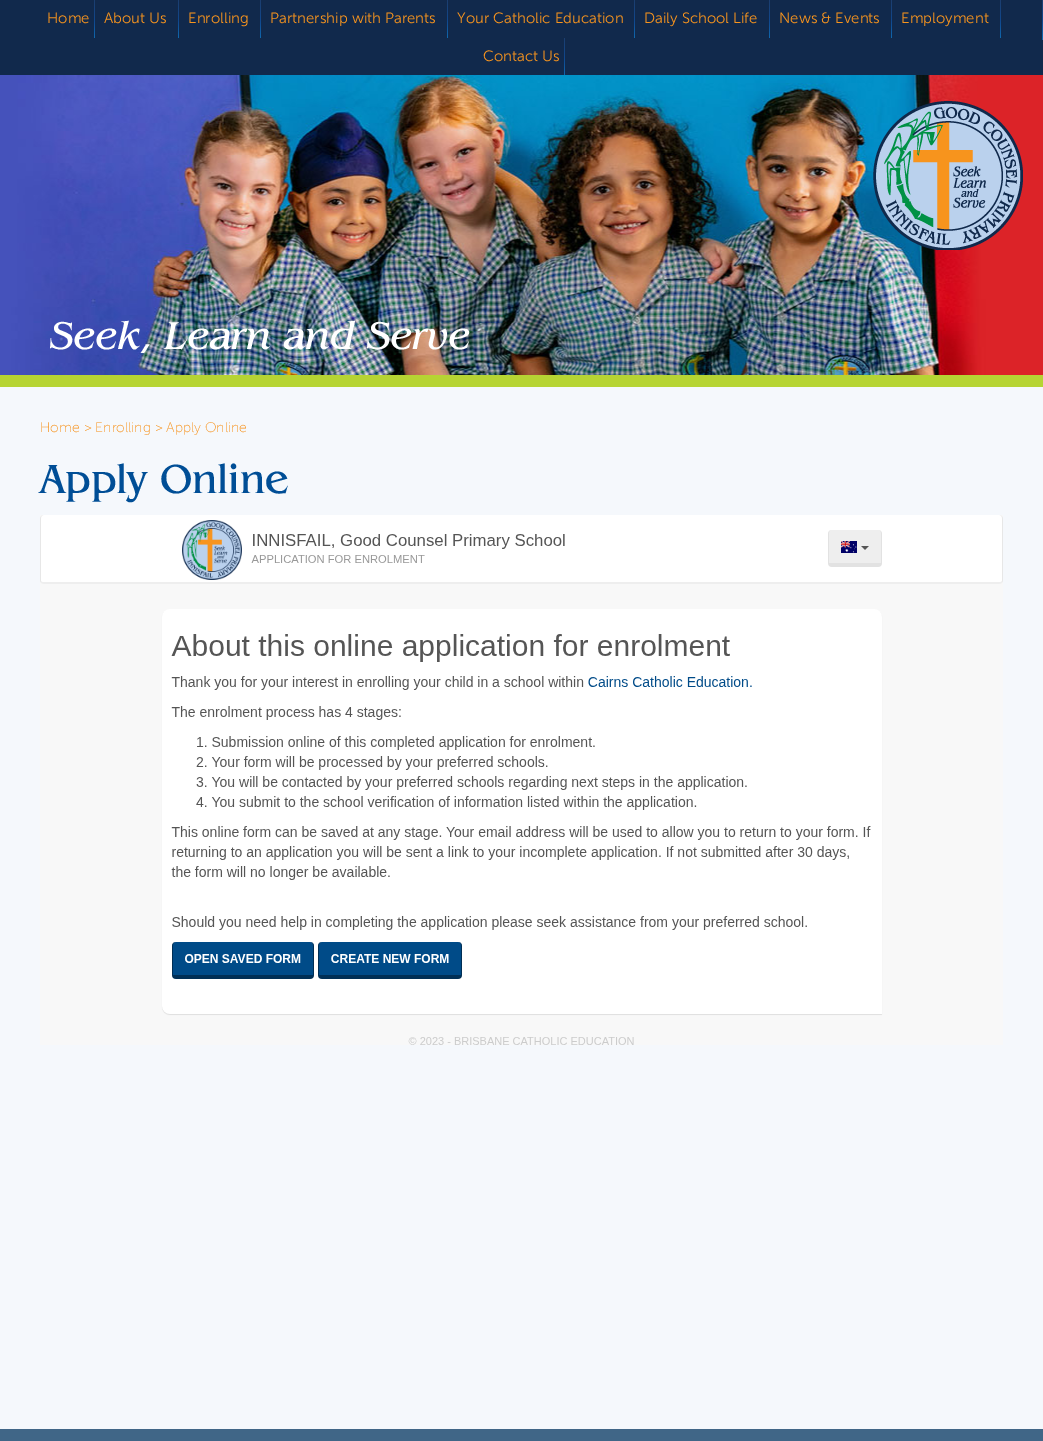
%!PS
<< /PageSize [1043 1441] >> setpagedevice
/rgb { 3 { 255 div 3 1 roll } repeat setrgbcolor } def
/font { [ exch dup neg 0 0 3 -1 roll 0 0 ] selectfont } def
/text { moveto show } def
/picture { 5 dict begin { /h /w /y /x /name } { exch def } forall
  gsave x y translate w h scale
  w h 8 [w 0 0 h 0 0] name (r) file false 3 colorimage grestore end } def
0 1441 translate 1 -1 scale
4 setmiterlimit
245 248 252 rgb
0 0 1043 1441 rectfill
17 41 76 rgb
0 0 1043 75 rectfill
(img_01.rgb) 1042 0 1 40 picture
(img_02.rgb) 94 0 1 38 picture
(img_02.rgb) 178 0 1 38 picture
(img_02.rgb) 260 0 1 38 picture
(img_02.rgb) 447 0 1 38 picture
(img_02.rgb) 634 0 1 38 picture
(img_02.rgb) 769 0 1 38 picture
(img_02.rgb) 891 0 1 38 picture
(img_02.rgb) 1000 0 1 38 picture
(img_03.rgb) 564 38 1 37 picture
(img_04.rgb) 0 75 1043 300 picture
182 212 51 rgb
0 375 1043 12 rectfill
(img_05.rgb) 873 101 150 149 picture
(img_06.rgb) 40 515 963 530 picture
64 102 135 rgb
0 1429 1043 12 rectfill
/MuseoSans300-Light 15 font
247 148 30 rgb
(Home) 47 23 text
(About Us) 104 23 text
(Enrolling) 188 23 text
(Partnership with Parents) 270 23 text
(Your Catholic Education) 457 23 text
(Daily School Life) 644 23 text
(News & Events) 779 23 text
(Employment) 901 23 text
(Contact Us) 483 61 text
/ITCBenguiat-Italic 40 font
255 255 255 rgb
(Seek, Learn and Serve) 50 349 text
/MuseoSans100-Light 14 font
247 148 30 rgb
(Home > Enrolling > Apply Online) 40 432 text
/ITCBenguiat-Regular 42 font
0 78 150 rgb
(Apply Online) 40 493 text
showpage
